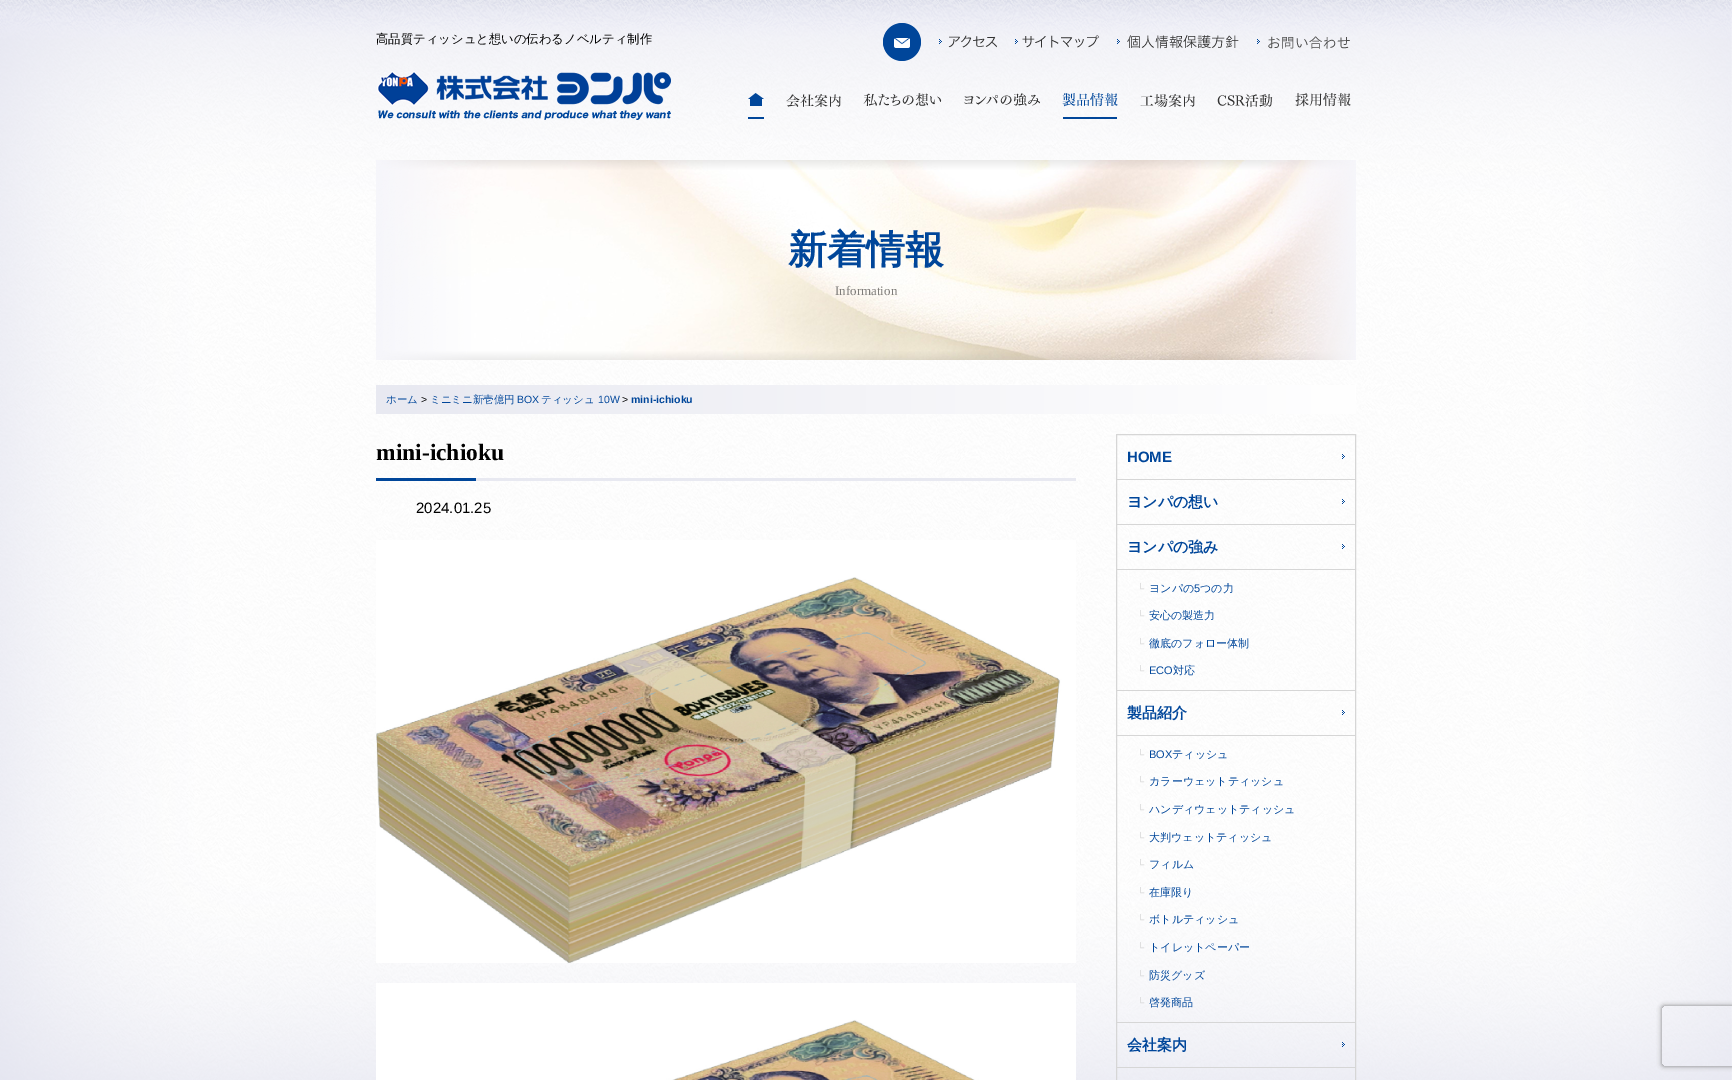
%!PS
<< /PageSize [1732 1080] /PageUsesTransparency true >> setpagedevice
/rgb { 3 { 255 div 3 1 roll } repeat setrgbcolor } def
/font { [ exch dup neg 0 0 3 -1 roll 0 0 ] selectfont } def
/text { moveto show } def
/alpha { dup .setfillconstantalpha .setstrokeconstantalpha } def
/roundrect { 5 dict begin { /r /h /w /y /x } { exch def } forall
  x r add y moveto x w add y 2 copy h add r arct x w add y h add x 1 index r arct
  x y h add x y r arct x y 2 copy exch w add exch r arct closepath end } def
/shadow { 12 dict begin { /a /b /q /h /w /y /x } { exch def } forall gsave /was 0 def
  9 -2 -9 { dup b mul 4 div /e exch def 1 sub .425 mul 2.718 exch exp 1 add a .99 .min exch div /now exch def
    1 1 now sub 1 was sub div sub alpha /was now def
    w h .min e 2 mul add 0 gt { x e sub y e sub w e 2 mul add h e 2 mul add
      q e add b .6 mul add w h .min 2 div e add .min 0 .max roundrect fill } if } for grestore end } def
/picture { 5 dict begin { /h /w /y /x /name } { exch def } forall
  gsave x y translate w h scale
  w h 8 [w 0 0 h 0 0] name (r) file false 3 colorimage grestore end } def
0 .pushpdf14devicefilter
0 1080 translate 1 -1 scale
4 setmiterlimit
255 255 255 rgb
0 0 1732 1080 rectfill
(img_01.rgb) 0 0 1732 1080 picture
(img_02.rgb) 377 71 294 49 picture
(img_03.rgb) 883 23 38 38 picture
(img_04.rgb) 939 35 58 13 picture
(img_05.rgb) 1015 35 84 13 picture
(img_06.rgb) 1117 35 122 14 picture
(img_07.rgb) 1257 36 93 13 picture
(img_08.rgb) 748 93 16 26 picture
(img_09.rgb) 786 94 55 13 picture
(img_10.rgb) 863 93 79 13 picture
(img_11.rgb) 964 93 76 13 picture
(img_12.rgb) 1062 93 56 26 picture
(img_13.rgb) 1140 94 55 13 picture
(img_14.rgb) 1217 94 56 13 picture
(img_15.rgb) 1295 93 56 14 picture
(img_16.rgb) 376 160 980 200 picture
gsave 376 385 moveto 980 0 rlineto 0 29 rlineto -980 0 rlineto closepath clip newpath
<< /ShadingType 2 /ColorSpace /DeviceRGB /Coords [376 400 1356 399] /Extend [true true] /Function << /FunctionType 2 /Domain [0 1] /C0 [0.91 0.914 0.945] /C1 [1 1 1] /N 1 >> >> shfill grestore
0 70 154 rgb
376 478 100 3 rectfill
232 233 241 rgb
476 478 600 3 rectfill
(img_17.rgb) 376 540 700 423 picture
(img_18.rgb) 376 983 700 97 picture
214 214 214 rgb
1116.5 434.5 239 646 rectstroke
(img_19.rgb) 1342 454 3 5 picture
1117 479 238 1 rectfill
(img_20.rgb) 1342 499 3 5 picture
1117 524 238 1 rectfill
(img_21.rgb) 1342 544 3 5 picture
1117 569 238 1 rectfill
1117 690 238 1 rectfill
(img_22.rgb) 1342 710 3 5 picture
1117 735 238 1 rectfill
1117 1022 238 1 rectfill
(img_23.rgb) 1342 1042 3 5 picture
1117 1067 238 1 rectfill
gsave
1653 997 moveto 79 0 rlineto 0 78 rlineto -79 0 rlineto closepath 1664 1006 moveto 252 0 rlineto 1 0 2 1 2 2 rcurveto 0 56 rlineto 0 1 -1 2 -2 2 rcurveto -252 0 rlineto -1 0 -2 -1 -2 -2 rcurveto 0 -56 rlineto 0 -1 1 -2 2 -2 rcurveto closepath eoclip newpath
128 128 128 rgb
1662 1006 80 60 2 2.5 1 shadow
grestore
/WenQuanYiZenHei-Medium 12.35 font
0 0 0 rgb
(高品質ティッシュと想いの伝わるノベルティ制作) 376 43 text
/WenQuanYiZenHei-Bold 39 font
0 70 154 rgb
(新着情報) 788 263 text
/LiberationSerif-Regular 13 font
126 124 121 rgb
(Information) 835 295 text
/WenQuanYiZenHei-Medium 10.5 font
0 70 154 rgb
(ホーム) 386 403 text
/LiberationSans-Regular 10.5 font
0 0 0 rgb
(>) 421 403 text
/WenQuanYiZenHei-Medium 10.5 font
0 70 154 rgb
(ミニミニ新壱億円) 430 403 text
/LiberationSans-Regular 10.5 font
(BOX) 517 403 text
/WenQuanYiZenHei-Medium 10.5 font
(ティッシュ) 541 403 text
/LiberationSans-Regular 10.5 font
(10W) 598 403 text
0 0 0 rgb
(>) 622 403 text
/LiberationSans-Bold 10.5 font
0 70 154 rgb
(mini-ichioku) 631 403 text
/LiberationSerif-Bold 23.5 font
0 0 0 rgb
(mini-ichioku) 376 460 text
/LiberationSans-Regular 15 font
(2024.01.25) 416 513 text
/LiberationSans-Bold 15 font
0 70 154 rgb
(HOME) 1127 462 text
/WenQuanYiZenHei-Bold 15 font
(ヨンパの想い) 1127 507 text
(ヨンパの強み) 1127 552 text
/LiberationSans-Regular 10 font
214 214 214 rgb
(└) 1137 592 text
/WenQuanYiZenHei-Medium 11 font
0 70 154 rgb
(ヨンパの) 1149 592 text
/LiberationSans-Regular 11 font
(5) 1194 592 text
/WenQuanYiZenHei-Medium 11 font
(つの力) 1200 592 text
/LiberationSans-Regular 10 font
214 214 214 rgb
(└) 1137 619 text
/WenQuanYiZenHei-Medium 11 font
0 70 154 rgb
(安心の製造力) 1149 619 text
/LiberationSans-Regular 10 font
214 214 214 rgb
(└) 1137 647 text
/WenQuanYiZenHei-Medium 11 font
0 70 154 rgb
(徹底のフォロー体制) 1149 647 text
/LiberationSans-Regular 10 font
214 214 214 rgb
(└) 1137 674 text
/LiberationSans-Regular 11 font
0 70 154 rgb
(ECO) 1149 674 text
/WenQuanYiZenHei-Medium 11 font
(対応) 1173 674 text
/WenQuanYiZenHei-Bold 15 font
(製品紹介) 1127 718 text
/LiberationSans-Regular 10 font
214 214 214 rgb
(└) 1137 758 text
/LiberationSans-Regular 11 font
0 70 154 rgb
(BOX) 1149 758 text
/WenQuanYiZenHei-Medium 11 font
(ティッシュ) 1172 758 text
/LiberationSans-Regular 10 font
214 214 214 rgb
(└) 1137 785 text
/WenQuanYiZenHei-Medium 11 font
0 70 154 rgb
(カラーウェットティッシュ) 1149 785 text
/LiberationSans-Regular 10 font
214 214 214 rgb
(└) 1137 813 text
/WenQuanYiZenHei-Medium 11 font
0 70 154 rgb
(ハンディウェットティッシュ) 1149 813 text
/LiberationSans-Regular 10 font
214 214 214 rgb
(└) 1137 841 text
/WenQuanYiZenHei-Medium 11 font
0 70 154 rgb
(大判ウェットティッシュ) 1149 841 text
/LiberationSans-Regular 10 font
214 214 214 rgb
(└) 1137 868 text
/WenQuanYiZenHei-Medium 11 font
0 70 154 rgb
(フィルム) 1149 868 text
/LiberationSans-Regular 10 font
214 214 214 rgb
(└) 1137 896 text
/WenQuanYiZenHei-Medium 11 font
0 70 154 rgb
(在庫限り) 1149 896 text
/LiberationSans-Regular 10 font
214 214 214 rgb
(└) 1137 923 text
/WenQuanYiZenHei-Medium 11 font
0 70 154 rgb
(ボトルティッシュ) 1149 923 text
/LiberationSans-Regular 10 font
214 214 214 rgb
(└) 1137 951 text
/WenQuanYiZenHei-Medium 11 font
0 70 154 rgb
(トイレットペーパー) 1149 951 text
/LiberationSans-Regular 10 font
214 214 214 rgb
(└) 1137 979 text
/WenQuanYiZenHei-Medium 11 font
0 70 154 rgb
(防災グッズ) 1149 979 text
/LiberationSans-Regular 10 font
214 214 214 rgb
(└) 1137 1006 text
/WenQuanYiZenHei-Medium 11 font
0 70 154 rgb
(啓発商品) 1149 1006 text
/WenQuanYiZenHei-Bold 15 font
(会社案内) 1127 1050 text
.poppdf14devicefilter showpage
